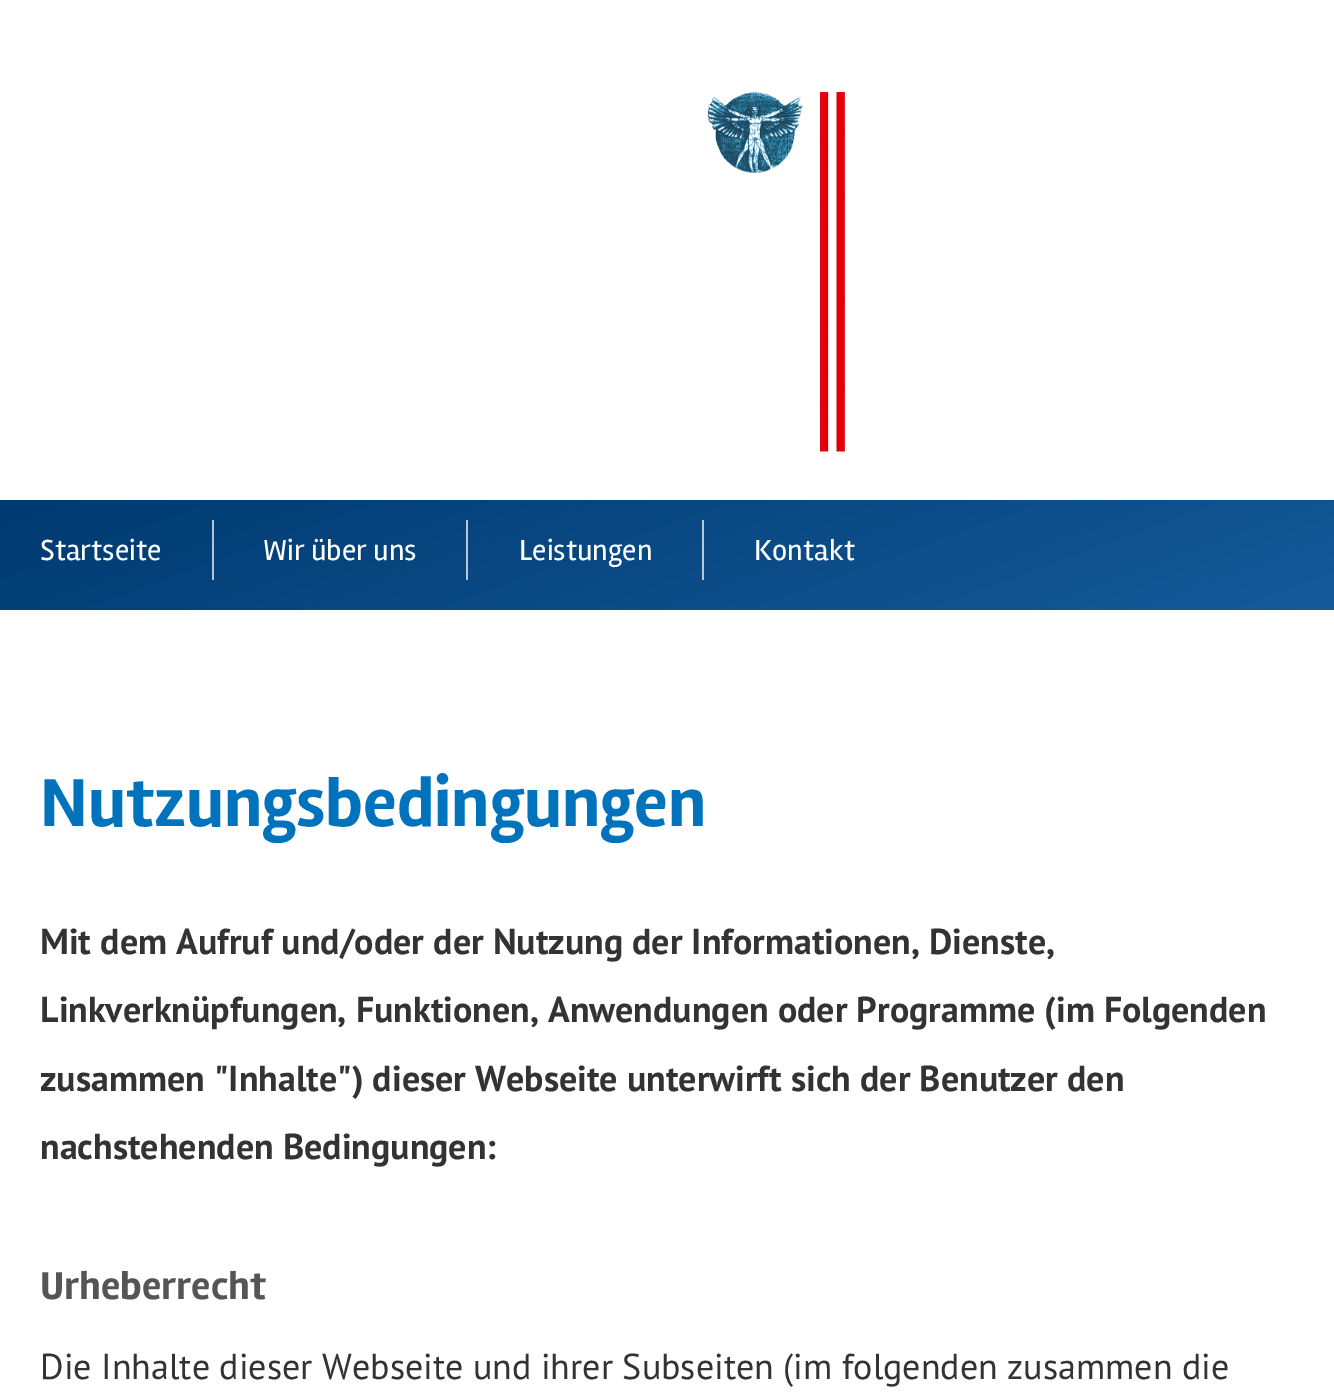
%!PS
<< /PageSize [1334 1394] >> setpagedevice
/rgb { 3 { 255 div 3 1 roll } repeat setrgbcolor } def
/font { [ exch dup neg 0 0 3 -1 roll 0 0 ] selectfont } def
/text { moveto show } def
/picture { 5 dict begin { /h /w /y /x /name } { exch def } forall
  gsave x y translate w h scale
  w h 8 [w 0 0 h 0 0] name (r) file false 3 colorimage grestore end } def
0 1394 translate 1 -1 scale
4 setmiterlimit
255 255 255 rgb
0 0 1334 1394 rectfill
(img_01.rgb) 707 92 138 360 picture
gsave 0 500 moveto 1334 0 rlineto 0 110 rlineto -1334 0 rlineto closepath clip newpath
<< /ShadingType 2 /ColorSpace /DeviceRGB /Coords [763 818 571 292] /Extend [true true] /Function << /FunctionType 2 /Domain [0 1] /C0 [0.082 0.353 0.604] /C1 [0 0.231 0.443] /N 1 >> >> shfill grestore
gsave 702 520 moveto 2 0 rlineto 0 60 rlineto -2 0 rlineto closepath clip newpath
<< /ShadingType 2 /ColorSpace /DeviceRGB /Coords [763 818 571 292] /Extend [true true] /Function << /FunctionType 2 /Domain [0 1] /C0 [0.725 0.808 0.882] /C1 [0.702 0.769 0.831] /N 1 >> >> shfill grestore
gsave 466 520 moveto 2 0 rlineto 0 60 rlineto -2 0 rlineto closepath clip newpath
<< /ShadingType 2 /ColorSpace /DeviceRGB /Coords [763 818 571 292] /Extend [true true] /Function << /FunctionType 2 /Domain [0 1] /C0 [0.725 0.808 0.882] /C1 [0.702 0.769 0.831] /N 1 >> >> shfill grestore
gsave 212 520 moveto 2 0 rlineto 0 60 rlineto -2 0 rlineto closepath clip newpath
<< /ShadingType 2 /ColorSpace /DeviceRGB /Coords [763 818 571 292] /Extend [true true] /Function << /FunctionType 2 /Domain [0 1] /C0 [0.725 0.808 0.882] /C1 [0.702 0.769 0.831] /N 1 >> >> shfill grestore
/Rambla-Regular 30 font
(Startseite) 40 560 text
(Wir über uns) 263 560 text
(Leistungen) 519 560 text
(Kontakt) 754 560 text
/Rambla-Bold 70 font
0 115 188 rgb
(Nutzungsbedingungen) 40 826 text
/PTSans-Bold 36 font
51 51 51 rgb
(Mit dem Aufruf und/oder der Nutzung der Informationen, Dienste,) 40 954 text
(Linkverknüpfungen, Funktionen, Anwendungen oder Programme \(im Folgenden) 40 1022 text
(zusammen "Inhalte"\) dieser Webseite unterwirft sich der Benutzer den) 40 1091 text
(nachstehenden Bedingungen:) 40 1159 text
/Rambla-Bold 40 font
85 85 85 rgb
(Urheberrecht) 40 1299 text
/PTSans-Regular 36 font
51 51 51 rgb
(Die Inhalte dieser Webseite und ihrer Subseiten \(im folgenden zusammen die) 40 1379 text
showpage
